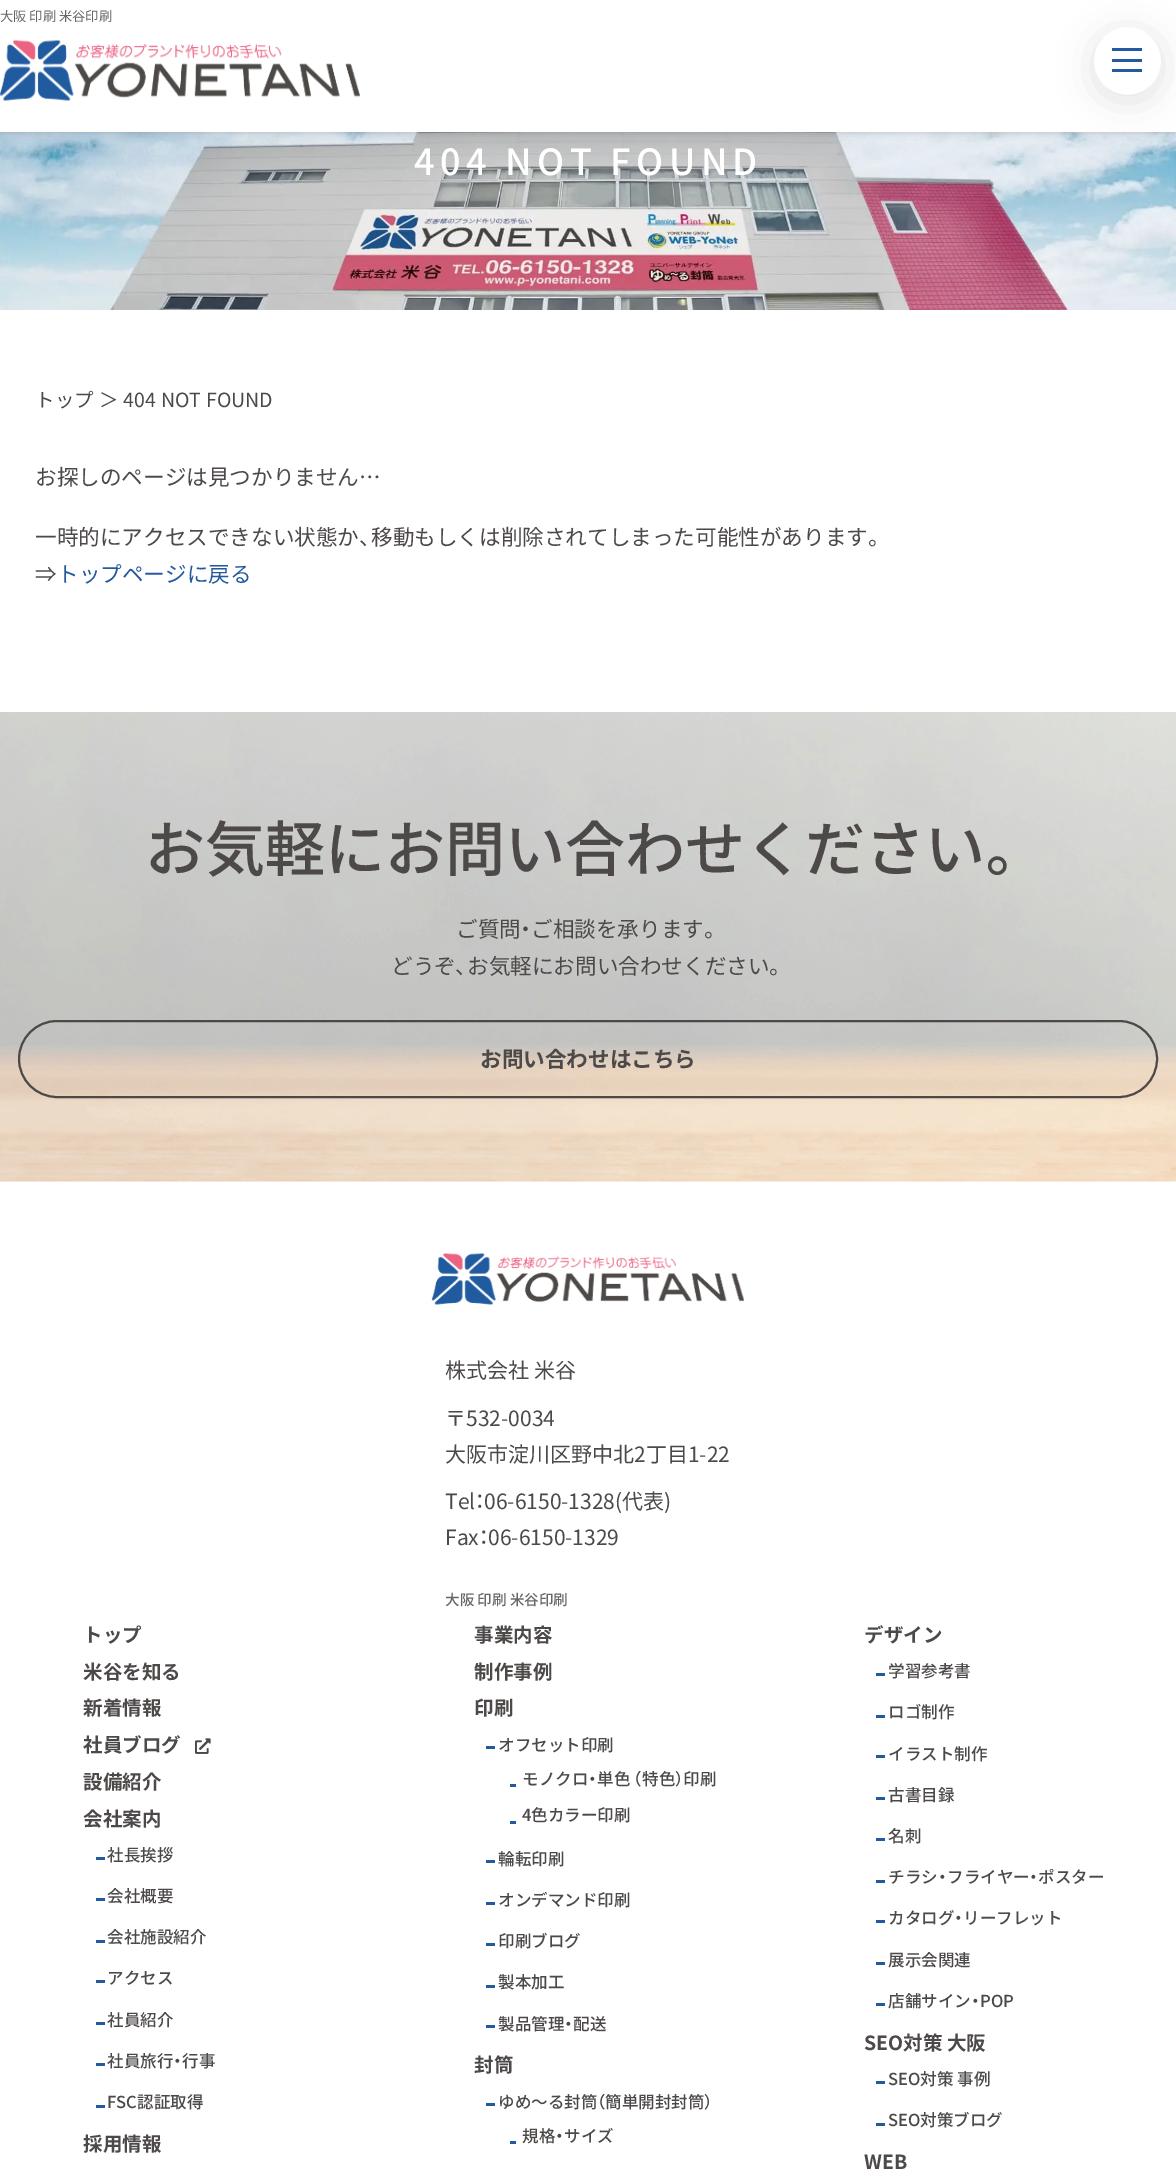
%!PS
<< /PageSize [1176 2171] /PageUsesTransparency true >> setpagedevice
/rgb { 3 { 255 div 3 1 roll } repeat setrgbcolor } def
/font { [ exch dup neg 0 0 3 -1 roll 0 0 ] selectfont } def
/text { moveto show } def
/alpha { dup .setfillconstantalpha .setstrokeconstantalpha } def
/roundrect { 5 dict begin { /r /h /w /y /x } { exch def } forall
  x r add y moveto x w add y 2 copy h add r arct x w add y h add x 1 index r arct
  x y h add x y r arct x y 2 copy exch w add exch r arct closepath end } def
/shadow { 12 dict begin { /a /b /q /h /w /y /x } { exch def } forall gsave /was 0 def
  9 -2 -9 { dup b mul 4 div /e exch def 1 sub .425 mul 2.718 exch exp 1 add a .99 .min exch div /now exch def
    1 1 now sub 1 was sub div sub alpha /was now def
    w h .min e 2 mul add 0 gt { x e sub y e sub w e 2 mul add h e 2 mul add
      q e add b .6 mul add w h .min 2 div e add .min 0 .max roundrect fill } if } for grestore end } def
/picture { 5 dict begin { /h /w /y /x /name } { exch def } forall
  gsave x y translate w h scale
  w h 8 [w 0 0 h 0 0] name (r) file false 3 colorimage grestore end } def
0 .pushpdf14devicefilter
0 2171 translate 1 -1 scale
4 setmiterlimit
255 255 255 rgb
0 0 1176 2171 rectfill
(img_02.rgb) 0 132 1176 178 picture
0 0 0 rgb
0 0 1176 132 0 4 0.2 shadow
255 255 255 rgb
0 0 1176 132 rectfill
gsave
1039 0 moveto 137 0 rlineto 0 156 rlineto -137 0 rlineto closepath 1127.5 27 moveto 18.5 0 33.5 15 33.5 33.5 rcurveto 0 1 rlineto 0 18.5 -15 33.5 -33.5 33.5 rcurveto -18.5 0 -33.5 -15 -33.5 -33.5 rcurveto 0 -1 rlineto 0 -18.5 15 -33.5 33.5 -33.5 rcurveto closepath eoclip newpath
153 153 153 rgb
1094 33 67 68 33.5 18 0.3 shadow
grestore
0.6 alpha
1094 27 67 68 33.5 roundrect fill
1 alpha
35 90 159 rgb
1112 48 30 3 rectfill
1112 59 30 3 rectfill
1112 69 30 3 rectfill
(img_01.rgb) 0 40 360 61 picture
(img_03.rgb) 0 712 1176 470 picture
76 73 72 rgb
2 setlinewidth
19 1021 1138 76 38 roundrect stroke
(img_04.rgb) 431 1253 313 52 picture
(img_05.rgb) 195 1738 16 16 picture
35 90 159 rgb
96 1857 9 3 rectfill
96 1898 9 3 rectfill
96 1940 9 3 rectfill
96 1980 9 3 rectfill
96 2022 9 3 rectfill
96 2063 9 3 rectfill
96 2105 9 3 rectfill
486 1746 9 3 rectfill
510 1784 6 3 rectfill
510 1821 6 3 rectfill
486 1860 9 3 rectfill
486 1902 9 3 rectfill
486 1943 9 3 rectfill
486 1985 9 3 rectfill
486 2025 9 3 rectfill
486 2103 9 3 rectfill
510 2141 6 3 rectfill
876 1673 9 3 rectfill
876 1715 9 3 rectfill
876 1755 9 3 rectfill
876 1797 9 3 rectfill
876 1838 9 3 rectfill
876 1880 9 3 rectfill
876 1920 9 3 rectfill
876 1962 9 3 rectfill
876 2003 9 3 rectfill
876 2081 9 3 rectfill
876 2123 9 3 rectfill
/NotoSansJP-Regular 13.25 font
103 103 103 rgb
(大阪 印刷 米谷印刷) 0 21 text
/NotoSansJP-Medium 36 font
255 255 255 rgb
414 175 moveto 5.4 0 (404 NOT FOUND) ashow
/NotoSansJP-Regular 19.5 font
76 73 72 rgb
(トップ) 35 407 text
99 407 moveto 0.5 0 32 (＞ 404 NOT FOUND) widthshow
/NotoSansJP-Regular 21.6 font
(お探しのページは見つかりません) 35 485 text
/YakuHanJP-Regular 21.6 font
(…) 359 485 text
/NotoSansJP-Regular 21.6 font
(一時的にアクセスできない状態か) 35 545 text
/YakuHanJP-Regular 21.6 font
(、) 359 545 text
/NotoSansJP-Regular 21.6 font
(移動もしくは削除されてしまった可能性があります) 371 545 text
/YakuHanJP-Regular 21.6 font
(。) 868 545 text
/NotoSansJP-Regular 21.6 font
(⇒) 35 582 text
35 90 159 rgb
(トップページに戻る) 57 582 text
/NotoSansJP-Medium 60 font
76 73 72 rgb
(お気軽にお問い合わせください) 145 871 text
/YakuHanJP-Medium 60 font
(。) 985 871 text
/NotoSansJP-Regular 21.6 font
(ご質問) 456 937 text
/YakuHanJP-Regular 21.6 font
(・) 520 937 text
/NotoSansJP-Regular 21.6 font
(ご相談を承ります) 531 937 text
/YakuHanJP-Regular 21.6 font
(。) 704 937 text
/NotoSansJP-Regular 21.6 font
(どうぞ) 391 974 text
/YakuHanJP-Regular 21.6 font
(、) 455 974 text
/NotoSansJP-Regular 21.6 font
(お気軽にお問い合わせください) 467 974 text
/YakuHanJP-Regular 21.6 font
(。) 769 974 text
/NotoSansJP-Bold 21.6 font
(お問い合わせはこちら) 480 1067 text
/NotoSansJP-Regular 21 font
(株式会社 米谷) 445 1378 text
(〒532-0034) 445 1426 text
(大阪市淀川区野中北2丁目1-22) 445 1462 text
(Tel) 445 1509 text
/YakuHanJP-Regular 21 font
(：) 475 1509 text
/NotoSansJP-Regular 21 font
(06-6150-1328\(代表\)) 484 1509 text
(Fax) 445 1545 text
/YakuHanJP-Regular 21 font
(：) 479 1545 text
/NotoSansJP-Regular 21 font
(06-6150-1329) 488 1545 text
/NotoSansJP-Medium 14.5 font
103 103 103 rgb
(大阪 印刷 米谷印刷) 445 1605 text
/NotoSansJP-Bold 19.5 font
76 73 72 rgb
(トップ) 83 1642 text
(米谷を知る) 83 1679 text
(新着情報) 83 1715 text
(社員ブログ) 83 1752 text
(設備紹介) 83 1789 text
(会社案内) 83 1826 text
/NotoSansJP-Medium 16.5 font
(社長挨拶) 107 1861 text
(会社概要) 107 1902 text
(会社施設紹介) 107 1943 text
(アクセス) 107 1984 text
(社員紹介) 107 2026 text
(社員旅行) 107 2067 text
/YakuHanJP-Medium 16.5 font
(・) 173 2067 text
/NotoSansJP-Medium 16.5 font
(行事) 182 2067 text
(FSC認証取得) 107 2108 text
/NotoSansJP-Bold 19.5 font
(採用情報) 83 2151 text
(事業内容) 474 1642 text
(制作事例) 474 1679 text
(印刷) 474 1715 text
/NotoSansJP-Medium 16.5 font
(オフセット印刷) 498 1751 text
(モノクロ) 522 1785 text
/YakuHanJP-Medium 16.5 font
(・) 588 1785 text
/NotoSansJP-Medium 16.5 font
(単色) 597 1785 text
/YakuHanJP-Medium 16.5 font
(（) 633 1785 text
/NotoSansJP-Medium 16.5 font
(特色) 642 1785 text
/YakuHanJP-Medium 16.5 font
(）) 675 1785 text
/NotoSansJP-Medium 16.5 font
(印刷) 683 1785 text
(4色カラー印刷) 522 1821 text
(輪転印刷) 498 1865 text
(オンデマンド印刷) 498 1906 text
(印刷ブログ) 498 1947 text
(製本加工) 498 1988 text
(製品管理) 498 2030 text
/YakuHanJP-Medium 16.5 font
(・) 564 2030 text
/NotoSansJP-Medium 16.5 font
(配送) 573 2030 text
/NotoSansJP-Bold 19.5 font
(封筒) 474 2072 text
/NotoSansJP-Medium 16.5 font
(ゆめ～る封筒) 498 2108 text
/YakuHanJP-Medium 16.5 font
(（) 597 2108 text
/NotoSansJP-Medium 16.5 font
(簡単開封封筒) 605 2108 text
/YakuHanJP-Medium 16.5 font
(）) 704 2108 text
/NotoSansJP-Medium 16.5 font
(規格) 522 2142 text
/YakuHanJP-Medium 16.5 font
(・) 555 2142 text
/NotoSansJP-Medium 16.5 font
(サイズ) 564 2142 text
/NotoSansJP-Bold 19.5 font
(デザイン) 864 1642 text
/NotoSansJP-Medium 16.5 font
(学習参考書) 888 1677 text
(ロゴ制作) 888 1718 text
(イラスト制作) 888 1760 text
(古書目録) 888 1801 text
(名刺) 888 1842 text
(チラシ) 888 1883 text
/YakuHanJP-Medium 16.5 font
(・) 938 1883 text
/NotoSansJP-Medium 16.5 font
(フライヤー) 947 1883 text
/YakuHanJP-Medium 16.5 font
(・) 1029 1883 text
/NotoSansJP-Medium 16.5 font
(ポスター) 1038 1883 text
(カタログ) 888 1924 text
/YakuHanJP-Medium 16.5 font
(・) 954 1924 text
/NotoSansJP-Medium 16.5 font
(リーフレット) 963 1924 text
(展示会関連) 888 1966 text
(店舗サイン) 888 2007 text
/YakuHanJP-Medium 16.5 font
(・) 971 2007 text
/NotoSansJP-Medium 16.5 font
(POP) 980 2007 text
/NotoSansJP-Bold 19.5 font
(SEO対策 大阪) 864 2050 text
/NotoSansJP-Medium 16.5 font
(SEO対策 事例) 888 2085 text
(SEO対策ブログ) 888 2126 text
/NotoSansJP-Bold 19.5 font
(WEB) 864 2169 text
.poppdf14devicefilter showpage
